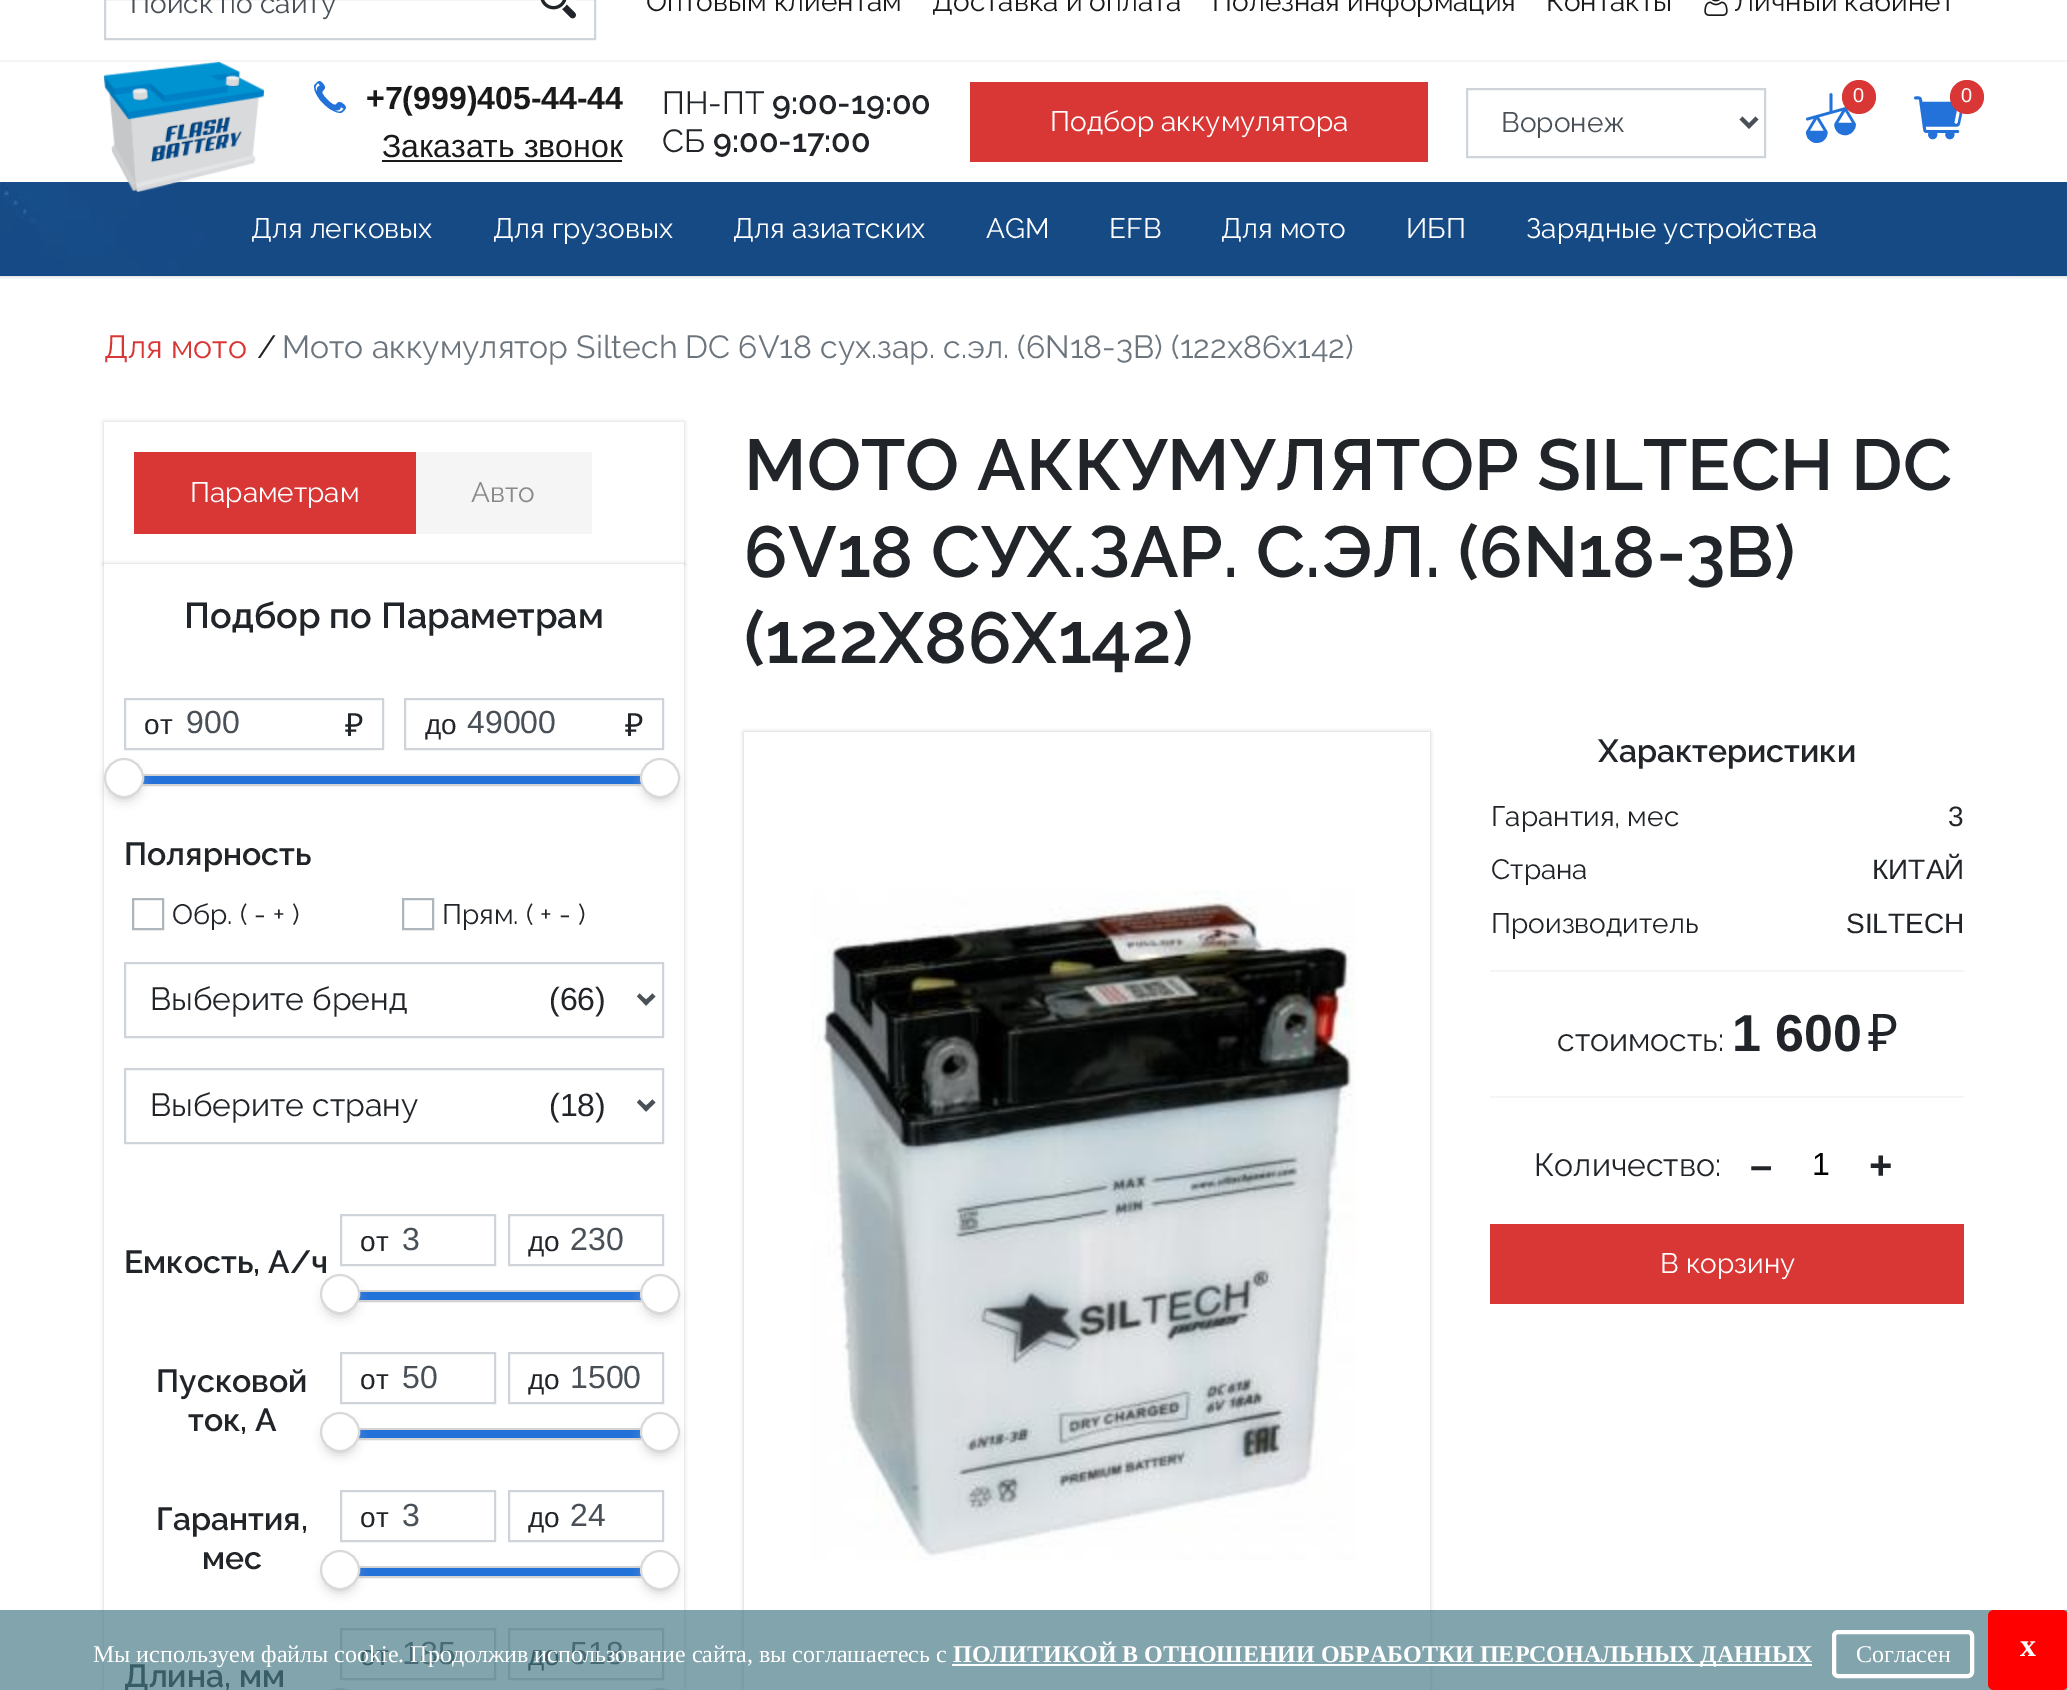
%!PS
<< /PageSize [2067 1690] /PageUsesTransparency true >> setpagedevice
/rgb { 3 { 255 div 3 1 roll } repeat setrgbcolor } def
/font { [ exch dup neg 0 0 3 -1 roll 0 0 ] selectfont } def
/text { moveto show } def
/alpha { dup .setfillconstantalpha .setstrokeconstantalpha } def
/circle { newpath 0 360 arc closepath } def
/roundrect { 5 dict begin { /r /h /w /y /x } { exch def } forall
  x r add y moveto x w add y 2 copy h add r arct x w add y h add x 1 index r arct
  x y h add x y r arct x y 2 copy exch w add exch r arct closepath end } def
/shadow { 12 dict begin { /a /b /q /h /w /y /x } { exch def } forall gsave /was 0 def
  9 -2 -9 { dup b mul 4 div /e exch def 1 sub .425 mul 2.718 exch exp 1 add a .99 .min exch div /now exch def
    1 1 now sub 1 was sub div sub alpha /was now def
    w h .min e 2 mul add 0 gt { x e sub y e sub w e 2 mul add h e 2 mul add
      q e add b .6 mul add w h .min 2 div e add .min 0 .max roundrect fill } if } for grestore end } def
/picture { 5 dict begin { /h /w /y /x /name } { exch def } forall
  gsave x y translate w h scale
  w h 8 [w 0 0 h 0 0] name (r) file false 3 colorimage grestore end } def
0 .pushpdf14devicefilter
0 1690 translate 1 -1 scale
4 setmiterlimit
255 255 255 rgb
0 0 2067 1690 rectfill
gsave
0 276 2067 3 rectclip
26 26 26 rgb
0 -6 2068 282 0 2 0.25 shadow
grestore
245 245 245 rgb
0 60 2067 2 rectfill
206 212 218 rgb
2 setlinewidth
105 -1 490 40 rectstroke
(img_01.rgb) 540 0 36 19 picture
(img_02.rgb) 1704 0 24 16 picture
(img_04.rgb) 0 182 2067 94 picture
(img_03.rgb) 104 62 160 130 picture
26 26 26 rgb
382 160 240 2 rectfill
217 54 54 rgb
970 82 458 80 rectfill
206 212 218 rgb
1467 89 298 68 rectstroke
73 80 87 rgb
4 setlinewidth
1741 118 moveto 8 8 rlineto 8 -8 rlineto stroke
gsave
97 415 moveto 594 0 rlineto 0 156 rlineto -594 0 rlineto closepath 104 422 moveto 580 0 rlineto 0 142 rlineto -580 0 rlineto closepath eoclip newpath
25 25 25 rgb
104 422 580 142 0 2 0.2 shadow
grestore
217 54 54 rgb
134 452 282 82 rectfill
245 245 245 rgb
416 452 176 82 rectfill
25 25 25 rgb
104 564 580 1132 0 2 0.2 shadow
255 255 255 rgb
104 564 580 1126 rectfill
206 212 218 rgb
2 setlinewidth
125 699 258 50 rectstroke
405 699 258 50 rectstroke
211 211 211 rgb
125 775 538 10 rectstroke
35 114 217 rgb
143 776 498 8 rectfill
187 187 187 rgb
110 770 28 28 14 6 1 shadow
255 255 255 rgb
124 778 19 circle gsave fill grestore
217 217 217 rgb
stroke
187 187 187 rgb
646 770 28 28 14 6 1 shadow
255 255 255 rgb
660 778 19 circle gsave fill grestore
217 217 217 rgb
stroke
173 181 189 rgb
133 899 30 30 rectstroke
403 899 30 30 rectstroke
206 212 218 rgb
125 963 538 74 rectstroke
73 80 87 rgb
652.5 993.5 moveto 3 3 rlineto -9.5 9 rlineto -3 -3 rlineto closepath fill
639.5 993.5 moveto 9.5 9 rlineto -3 3 rlineto -9 -9 rlineto closepath fill
206 212 218 rgb
125 1069 538 74 rectstroke
73 80 87 rgb
652.5 1099.5 moveto 3 3 rlineto -9.5 9 rlineto -3 -3 rlineto closepath fill
639.5 1099.5 moveto 9.5 9 rlineto -3 3 rlineto -9 -9 rlineto closepath fill
206 212 218 rgb
341 1215 154 50 rectstroke
509 1215 154 50 rectstroke
211 211 211 rgb
341 1291 322 10 rectstroke
35 114 217 rgb
359 1292 282 8 rectfill
187 187 187 rgb
326 1286 28 28 14 6 1 shadow
646 1286 28 28 14 6 1 shadow
255 255 255 rgb
660 1294 19 circle gsave fill grestore
217 217 217 rgb
stroke
206 212 218 rgb
341 1353 154 50 rectstroke
509 1353 154 50 rectstroke
211 211 211 rgb
341 1429 322 10 rectstroke
35 114 217 rgb
359 1430 282 8 rectfill
187 187 187 rgb
326 1424 28 28 14 6 1 shadow
255 255 255 rgb
340 1432 19 circle gsave fill grestore
217 217 217 rgb
stroke
187 187 187 rgb
646 1424 28 28 14 6 1 shadow
255 255 255 rgb
660 1432 19 circle gsave fill grestore
217 217 217 rgb
stroke
206 212 218 rgb
341 1491 154 50 rectstroke
509 1491 154 50 rectstroke
211 211 211 rgb
341 1567 322 10 rectstroke
35 114 217 rgb
359 1568 282 8 rectfill
187 187 187 rgb
326 1562 28 28 14 6 1 shadow
255 255 255 rgb
340 1570 19 circle gsave fill grestore
217 217 217 rgb
stroke
187 187 187 rgb
646 1562 28 28 14 6 1 shadow
255 255 255 rgb
660 1570 19 circle gsave fill grestore
217 217 217 rgb
stroke
206 212 218 rgb
341 1629 154 50 rectstroke
509 1629 154 50 rectstroke
217 217 217 rgb
321 1689 38 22 19 roundrect stroke
641 1689 38 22 19 roundrect stroke
gsave
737 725 moveto 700 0 rlineto 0 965 rlineto -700 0 rlineto closepath 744 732 moveto 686 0 rlineto 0 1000 rlineto -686 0 rlineto closepath eoclip newpath
26 26 26 rgb
744 732 686 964 0 2 0.25 shadow
grestore
(img_05.rgb) 811 890 545 671 picture
245 245 245 rgb
1490 970 474 2 rectfill
1490 1096 474 2 rectfill
217 54 54 rgb
1490 1224 474 80 rectfill
/Raleway-Regular 28 font
73 80 87 rgb
(Поиск по сайту) 130 13 text
26 26 26 rgb
(Оптовым клиентам) 646 11 text
(Доставка и оплата) 932 11 text
(Полезная информация) 1212 11 text
(Контакты) 1546 11 text
(Личный кабинет) 1734 11 text
/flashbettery-Regular 32 font
35 114 217 rgb
(a) 314 113 text
/LiberationSans-Bold 32 font
26 26 26 rgb
(+7\(999\)405-44-44) 366 109 text
/LiberationSans-Regular 32 font
(Заказать звонок) 382 157 text
/Raleway-Regular 32 font
33 37 41 rgb
(ПН-ПТ) 662 114 text
/Raleway-SemiBold 32 font
(9:00-19:00) 772 114 text
/Raleway-Regular 32 font
(СБ) 662 152 text
/Raleway-SemiBold 32 font
(9:00-17:00) 713 152 text
/Raleway-Regular 28 font
255 255 255 rgb
(Подбор аккумулятора) 1050 131 text
73 80 87 rgb
(Воронеж) 1501 132 text
/flashbettery-Regular 50 font
35 114 217 rgb
(f) 1806 143 text
217 54 54 rgb
1859 97 17 circle fill
/LiberationSans-Regular 20 font
255 255 255 rgb
(0) 1853 102 text
/flashbettery-Regular 50 font
35 114 217 rgb
(e) 1914 143 text
217 54 54 rgb
1967 97 17 circle fill
/LiberationSans-Regular 20 font
255 255 255 rgb
(0) 1961 102 text
/Raleway-Regular 28 font
(Для легковых) 251 238 text
(Для грузовых) 493 238 text
(Для азиатских) 733 238 text
(AGM) 986 238 text
(EFB) 1109 238 text
(Для мото) 1221 238 text
(ИБП) 1406 238 text
(Зарядные устройства) 1526 238 text
/Raleway-Regular 32 font
217 54 54 rgb
(Для мото) 104 358 text
33 37 41 rgb
(/) 257 358 text
108 117 125 rgb
(Мото аккумулятор Siltech DC 6V18 сух.зар. с.эл. \(6N18-3B\) \(122х86х142\)) 282 358 text
/Raleway-Regular 28 font
255 255 255 rgb
(Параметрам) 190 502 text
138 138 138 rgb
(Авто) 471 502 text
/Raleway-SemiBold 36 font
33 37 41 rgb
(Подбор по Параметрам) 184 628 text
/LiberationSans-Regular 28 font
(от) 144 734 text
/LiberationSans-Regular 32 font
73 80 87 rgb
(900) 186 733 text
/NotoSans-Regular 32 font
33 37 41 rgb
(₽) 345 736 text
/LiberationSans-Regular 28 font
(до) 425 734 text
/LiberationSans-Regular 32 font
73 80 87 rgb
(49000) 467 733 text
/NotoSans-Regular 32 font
33 37 41 rgb
(₽) 625 736 text
/Raleway-SemiBold 32 font
(Полярность) 124 865 text
/Raleway-Regular 28 font
(Обр. \( - + \)) 172 924 text
(Прям. \( + - \)) 442 924 text
/Raleway-Regular 32 font
(Выберите бренд) 150 1010 text
/LiberationSans-Regular 32 font
(\(66\)) 549 1010 text
/Raleway-Regular 32 font
(Выберите страну) 150 1116 text
/LiberationSans-Regular 32 font
(\(18\)) 549 1116 text
/LiberationSans-Regular 28 font
(от) 360 1251 text
/LiberationSans-Regular 32 font
73 80 87 rgb
(3) 402 1250 text
/LiberationSans-Regular 28 font
33 37 41 rgb
(до) 528 1251 text
/LiberationSans-Regular 32 font
73 80 87 rgb
(230) 570 1250 text
/Raleway-SemiBold 32 font
33 37 41 rgb
(Емкость, А/ч) 124 1273 text
255 255 255 rgb
340 1294 19 circle gsave fill grestore
217 217 217 rgb
stroke
33 37 41 rgb
(Пусковой) 156 1392 text
(ток, А) 188 1431 text
/LiberationSans-Regular 28 font
(от) 360 1389 text
/LiberationSans-Regular 32 font
73 80 87 rgb
(50) 402 1388 text
/LiberationSans-Regular 28 font
33 37 41 rgb
(до) 528 1389 text
/LiberationSans-Regular 32 font
73 80 87 rgb
(1500) 570 1388 text
/Raleway-SemiBold 32 font
33 37 41 rgb
(Гарантия,) 156 1530 text
(мес) 202 1569 text
/LiberationSans-Regular 28 font
(от) 360 1527 text
/LiberationSans-Regular 32 font
73 80 87 rgb
(3) 402 1526 text
/LiberationSans-Regular 28 font
33 37 41 rgb
(до) 528 1527 text
/LiberationSans-Regular 32 font
73 80 87 rgb
(24) 570 1526 text
/LiberationSans-Regular 28 font
33 37 41 rgb
(от) 360 1665 text
/LiberationSans-Regular 32 font
73 80 87 rgb
(185) 402 1664 text
/LiberationSans-Regular 28 font
33 37 41 rgb
(до) 528 1665 text
/LiberationSans-Regular 32 font
73 80 87 rgb
(518) 570 1664 text
/Raleway-SemiBold 32 font
33 37 41 rgb
(Длина, мм) 124 1687 text
/Raleway-SemiBold 72 font
(МОТО АККУМУЛЯТОР SILTECH DC) 744 490 text
(6V18 СУХ.ЗАР. С.ЭЛ. \(6N18-3B\)) 744 577 text
(\(122Х86Х142\)) 744 663 text
/Raleway-SemiBold 32 font
(Характеристики) 1598 762 text
/Raleway-Regular 28 font
(Гарантия, мес) 1491 826 text
/LiberationSans-Regular 28 font
(3) 1948 826 text
/Raleway-Regular 28 font
(Страна) 1491 879 text
/LiberationSans-Regular 28 font
(КИТАЙ) 1872 879 text
/Raleway-Regular 28 font
(Производитель) 1491 933 text
/LiberationSans-Regular 28 font
(SILTECH) 1846 933 text
/Raleway-Regular 32 font
(стоимость:) 1557 1051 text
/LiberationSans-Bold 52 font
(1 600) 1732 1051 text
/NotoSans-Regular 52 font
(₽) 1868 1051 text
/Raleway-Regular 32 font
(Количество:) 1534 1176 text
/LiberationSans-Bold 40 font
(–) 1750 1179 text
/LiberationSans-Regular 32 font
0 0 0 rgb
(1) 1812 1175 text
/LiberationSans-Bold 40 font
33 37 41 rgb
(+) 1869 1179 text
/Raleway-Regular 28 font
255 255 255 rgb
(В корзину) 1660 1273 text
0.67 alpha
68 120 132 rgb
0 1610 2067 80 rectfill
/LiberationSerif-Regular 24 font
1 alpha
255 255 255 rgb
(Мы используем файлы cookie. Продолжив использование сайта, вы соглашаетесь с) 93 1662 text
952 1664 860 2 rectfill
/LiberationSerif-Bold 24 font
(ПОЛИТИКОЙ В ОТНОШЕНИИ ОБРАБОТКИ ПЕРСОНАЛЬНЫХ ДАННЫХ) 953 1662 text
4 setlinewidth
1834 1632 138 44 4 roundrect stroke
/LiberationSerif-Regular 24 font
(Согласен) 1856 1662 text
255 0 0 rgb
1988 1610 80 80 6 roundrect fill
/LiberationSerif-Bold 32 font
255 255 255 rgb
(x) 2020 1656 text
.poppdf14devicefilter showpage
